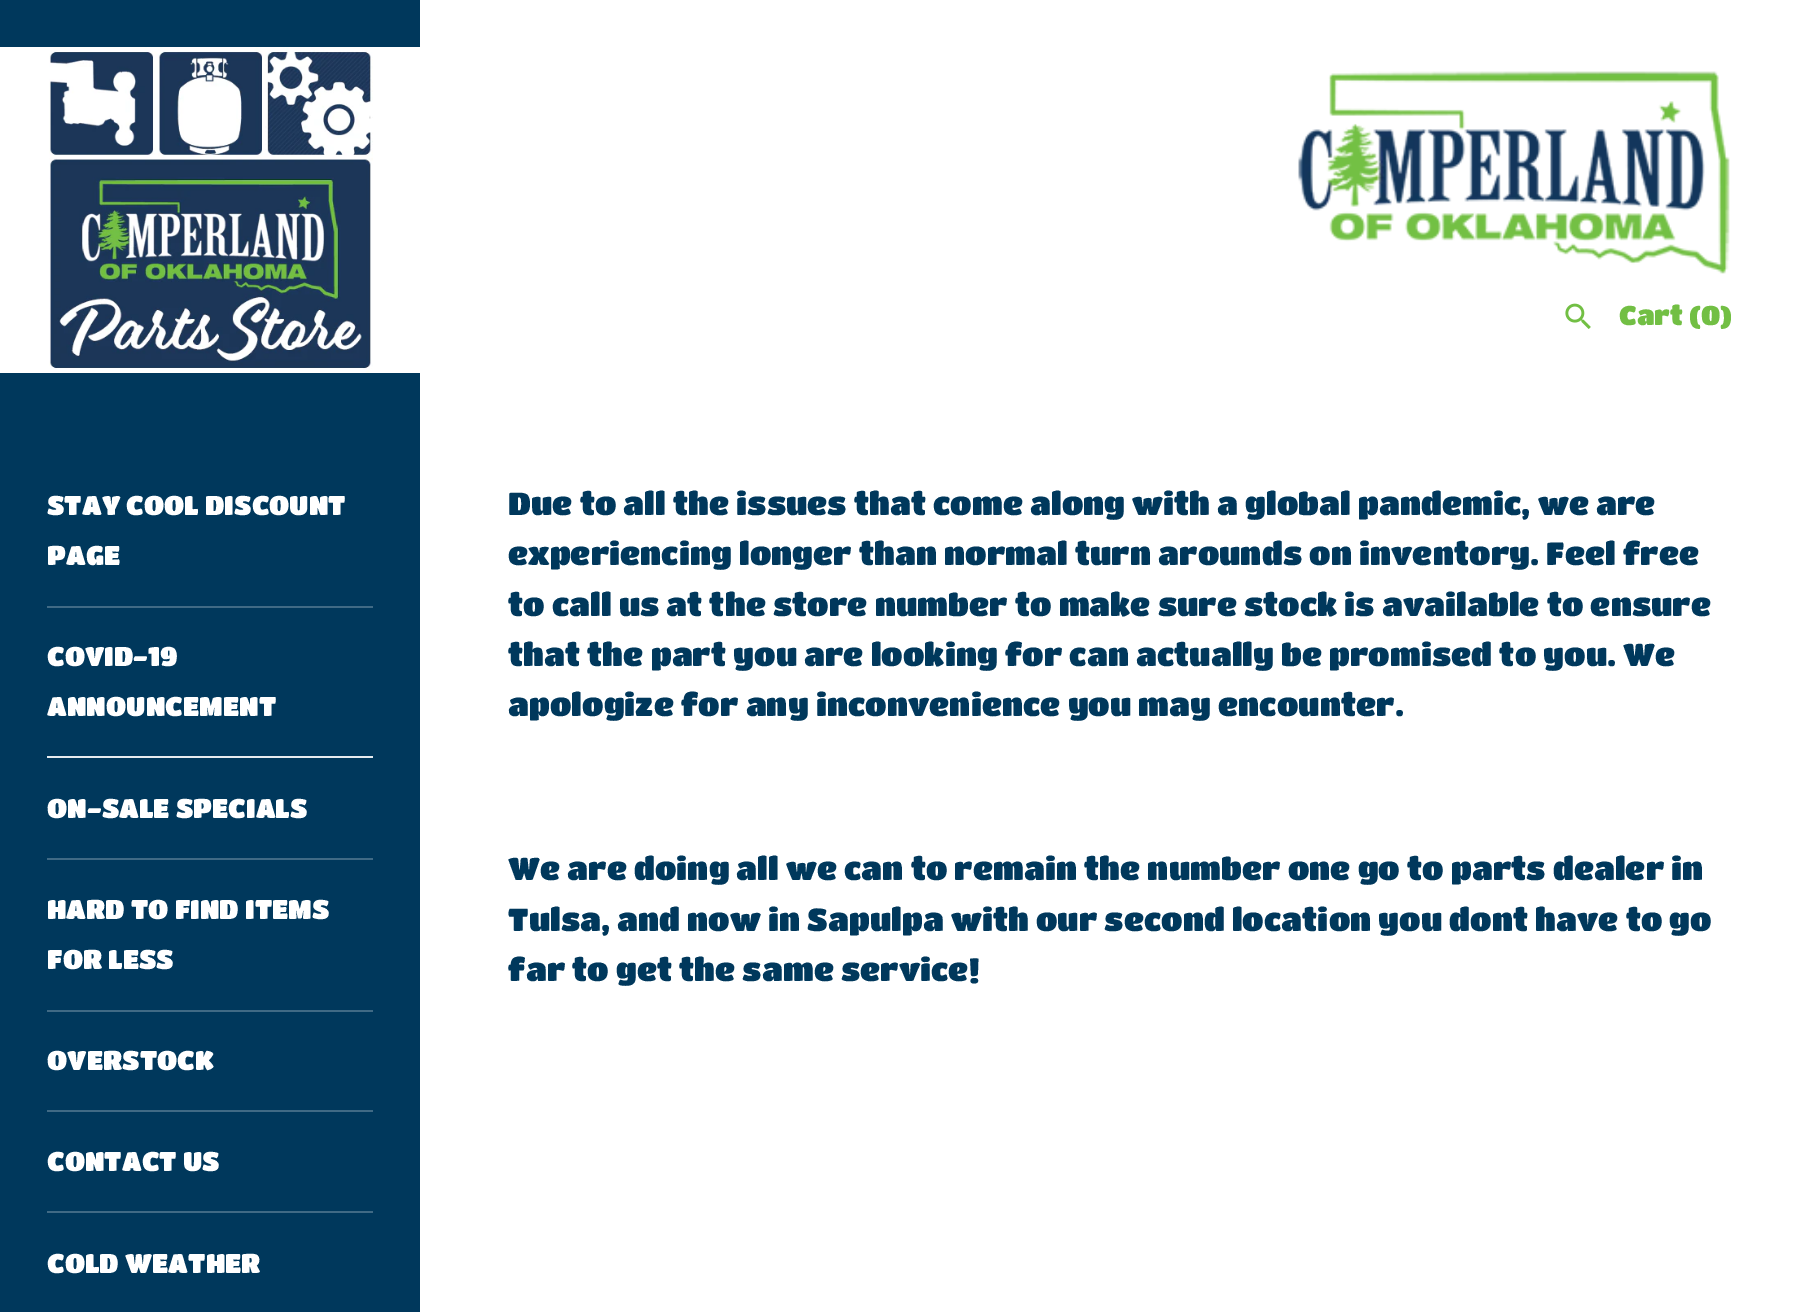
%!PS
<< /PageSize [1820 1312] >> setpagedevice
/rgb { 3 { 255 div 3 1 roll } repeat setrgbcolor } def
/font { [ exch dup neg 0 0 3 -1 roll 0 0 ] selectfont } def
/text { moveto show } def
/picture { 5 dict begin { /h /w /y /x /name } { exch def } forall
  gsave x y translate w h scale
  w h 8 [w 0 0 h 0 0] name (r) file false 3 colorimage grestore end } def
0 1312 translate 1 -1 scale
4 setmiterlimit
255 255 255 rgb
0 0 1820 1312 rectfill
(img_01.rgb) 1298 71 432 203 picture
(img_02.rgb) 1565 303 26 26 picture
0 56 92 rgb
0 0 420 1312 rectfill
255 255 255 rgb
0 47 420 326 rectfill
(img_03.rgb) 49 47 324 326 picture
64 106 133 rgb
47 606 326 2 rectfill
230 235 239 rgb
47 756 326 2 rectfill
64 106 133 rgb
47 858 326 2 rectfill
47 1010 326 2 rectfill
47 1110 326 2 rectfill
47 1211 326 2 rectfill
/TitanOne-Regular 26.75 font
114 191 68 rgb
(Cart \(0\)) 1619 325 text
255 255 255 rgb
(STAY COOL DISCOUNT) 47 515 text
(PAGE) 47 565 text
(COVID-19) 47 666 text
(ANNOUNCEMENT) 47 716 text
(ON-SALE SPECIALS) 47 818 text
(HARD TO FIND ITEMS) 47 919 text
(FOR LESS) 47 969 text
(OVERSTOCK) 47 1070 text
(CONTACT US) 47 1171 text
(COLD WEATHER) 47 1273 text
/TitanOne-Regular 31.5 font
0 56 92 rgb
(Due to all the issues that come along with a global pandemic, we are) 508 515 text
(experiencing longer than normal turn arounds on inventory. Feel free) 508 565 text
(to call us at the store number to make sure stock is available to ensure) 508 616 text
(that the part you are looking for can actually be promised to you. We) 508 666 text
(apologize for any inconvenience you may encounter.) 508 716 text
(We are doing all we can to remain the number one go to parts dealer in) 508 880 text
(Tulsa, and now in Sapulpa with our second location you dont have to go) 508 931 text
(far to get the same service!) 508 981 text
showpage
